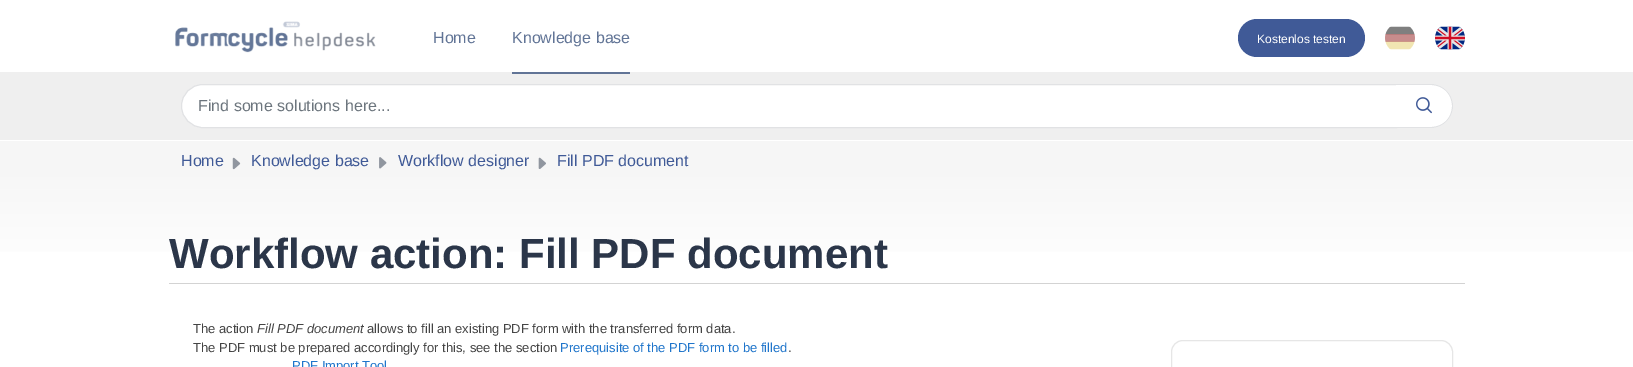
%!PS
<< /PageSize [1633 367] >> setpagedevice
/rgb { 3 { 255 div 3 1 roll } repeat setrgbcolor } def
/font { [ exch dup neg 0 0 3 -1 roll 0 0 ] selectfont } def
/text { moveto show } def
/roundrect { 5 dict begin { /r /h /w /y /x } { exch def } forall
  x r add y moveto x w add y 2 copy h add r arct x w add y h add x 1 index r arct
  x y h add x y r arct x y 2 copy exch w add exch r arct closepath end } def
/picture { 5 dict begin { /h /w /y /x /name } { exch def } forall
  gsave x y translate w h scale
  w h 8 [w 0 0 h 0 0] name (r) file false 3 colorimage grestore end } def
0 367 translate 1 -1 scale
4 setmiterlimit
255 255 255 rgb
0 0 1633 367 rectfill
(img_01.rgb) 175 21 201 32 picture
239 239 239 rgb
0 72 1633 68 rectfill
97 116 150 rgb
512 72 118 2 rectfill
64 90 151 rgb
1238 19 127 38 19 roundrect fill
(img_02.rgb) 1385 26 30 24 picture
(img_03.rgb) 1435 26 30 24 picture
246 246 246 rgb
0 141 1633 36 rectfill
255 255 255 rgb
203 84.5 moveto 1193.5 0 rlineto 0 43 rlineto -1193.5 0 rlineto -12 0 -21.5 -9.5 -21.5 -21.5 rcurveto 0 -12 9.5 -21.5 21.5 -21.5 rcurveto closepath gsave fill grestore
225 226 228 rgb
stroke
255 255 255 rgb
1396 84 moveto 35 0 rlineto 12 0 22 10 22 22 rcurveto 0 12 -10 22 -22 22 rcurveto -35 0 rlineto closepath fill
225 226 228 rgb
1396 84 moveto 35 0 rlineto 12 0 22 10 22 22 rcurveto 0 12 -10 22 -22 22 rcurveto -35 0 rlineto closepath 1396 85 moveto 35 0 rlineto 12 0 21 9 21 21 rcurveto 0 12 -9 21 -21 21 rcurveto -35 0 rlineto closepath eofill
(img_04.rgb) 1416 97 16 17 picture
(img_05.rgb) 232 157 9 13 picture
(img_06.rgb) 379 157 8 12 picture
(img_07.rgb) 538 157 8 12 picture
gsave 0 177 moveto 1633 0 rlineto 0 75 rlineto -1633 0 rlineto closepath clip newpath
<< /ShadingType 2 /ColorSpace /DeviceRGB /Coords [817 169 817 284] /Extend [true true] /Function << /FunctionType 2 /Domain [0 1] /C0 [0.965 0.965 0.965] /C1 [1 1 1] /N 1 >> >> shfill grestore
211 211 211 rgb
169 283 1296 1 rectfill
230 230 230 rgb
1171.5 340.5 281 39 11.5 roundrect stroke
/LiberationSans-Regular 16 font
97 116 150 rgb
(Home) 433 43 text
(Knowledge base) 512 43 text
/LiberationSans-Regular 12 font
255 255 255 rgb
(Kostenlos testen) 1257 43 text
/LiberationSans-Regular 16 font
108 117 125 rgb
(Find some solutions here...) 198 111 text
64 90 151 rgb
(Home) 181 166 text
(Knowledge base) 251 166 text
(Workflow designer) 398 166 text
(Fill PDF document) 557 166 text
/LiberationSans-Bold 42 font
43 54 73 rgb
(Workflow action: Fill PDF document) 169 268 text
/LiberationSans-Regular 13 font
68 68 68 rgb
(The action) 193 333 text
/LiberationSans-Italic 13 font
(Fill PDF document) 257 333 text
/LiberationSans-Regular 13 font
(allows to fill an existing PDF form with the transferred form data.) 367 333 text
(The PDF must be prepared accordingly for this, see the section) 193 352 text
31 117 203 rgb
(Prerequisite of the PDF form to be filled) 560 352 text
68 68 68 rgb
(.) 788 352 text
31 117 203 rgb
(PDF Import Tool) 292 370 text
showpage
